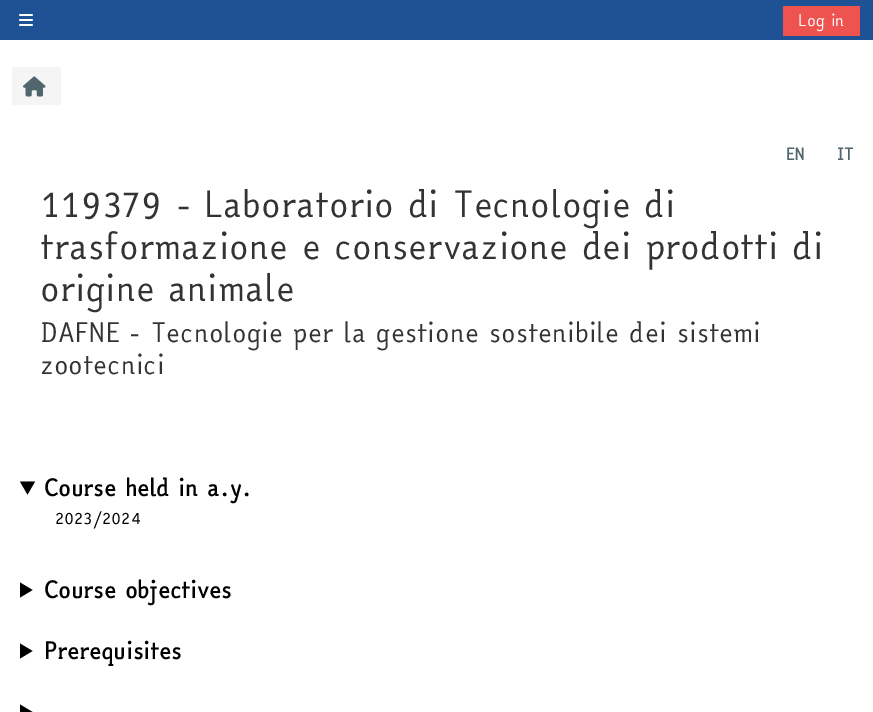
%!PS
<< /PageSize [873 712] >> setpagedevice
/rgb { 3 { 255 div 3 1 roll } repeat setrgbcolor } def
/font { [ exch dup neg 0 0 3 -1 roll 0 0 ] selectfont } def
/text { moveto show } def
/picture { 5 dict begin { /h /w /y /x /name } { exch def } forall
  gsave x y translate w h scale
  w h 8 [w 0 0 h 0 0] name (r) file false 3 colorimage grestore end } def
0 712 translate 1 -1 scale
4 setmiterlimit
255 255 255 rgb
0 0 873 712 rectfill
30 82 148 rgb
0 0 873 40 rectfill
(img_01.rgb) 19 14 14 12 picture
239 83 80 rgb
783 6 77 30 rectfill
245 245 245 rgb
12 67 49 38 rectfill
(img_02.rgb) 23 76 23 21 picture
0 0 0 rgb
20 481.5 moveto 15 0 rlineto -7.5 13 rlineto closepath fill
20 582.5 moveto 12.5 7.5 rlineto -12.5 7.5 rlineto closepath fill
20 643.5 moveto 12.5 7.5 rlineto -12.5 7.5 rlineto closepath fill
20 704.5 moveto 12.5 7.5 rlineto -12.5 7.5 rlineto closepath fill
/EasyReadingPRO-Regular 16 font
255 255 255 rgb
(Log in) 798 26 text
/EasyReadingPRO-Bold 16 font
81 102 108 rgb
(EN) 786 160 text
(IT) 837 160 text
/EasyReadingPRO-Regular 35.1 font
51 51 51 rgb
(119379 - Laboratorio di Tecnologie di) 40 217 text
(trasformazione e conservazione dei prodotti di) 40 259 text
(origine animale) 40 301 text
/EasyReadingPRO-Regular 26.05 font
(DAFNE - Tecnologie per la gestione sostenibile dei sistemi) 40 342 text
(zootecnici) 40 374 text
/EasyReadingPRO-Bold 22.5 font
0 0 0 rgb
(Course held in a.y.) 44 496 text
/EasyReadingPRO-Regular 16 font
(2023/2024) 55 524 text
/EasyReadingPRO-Bold 22.5 font
(Course objectives) 44 598 text
(Prerequisites) 44 659 text
showpage
